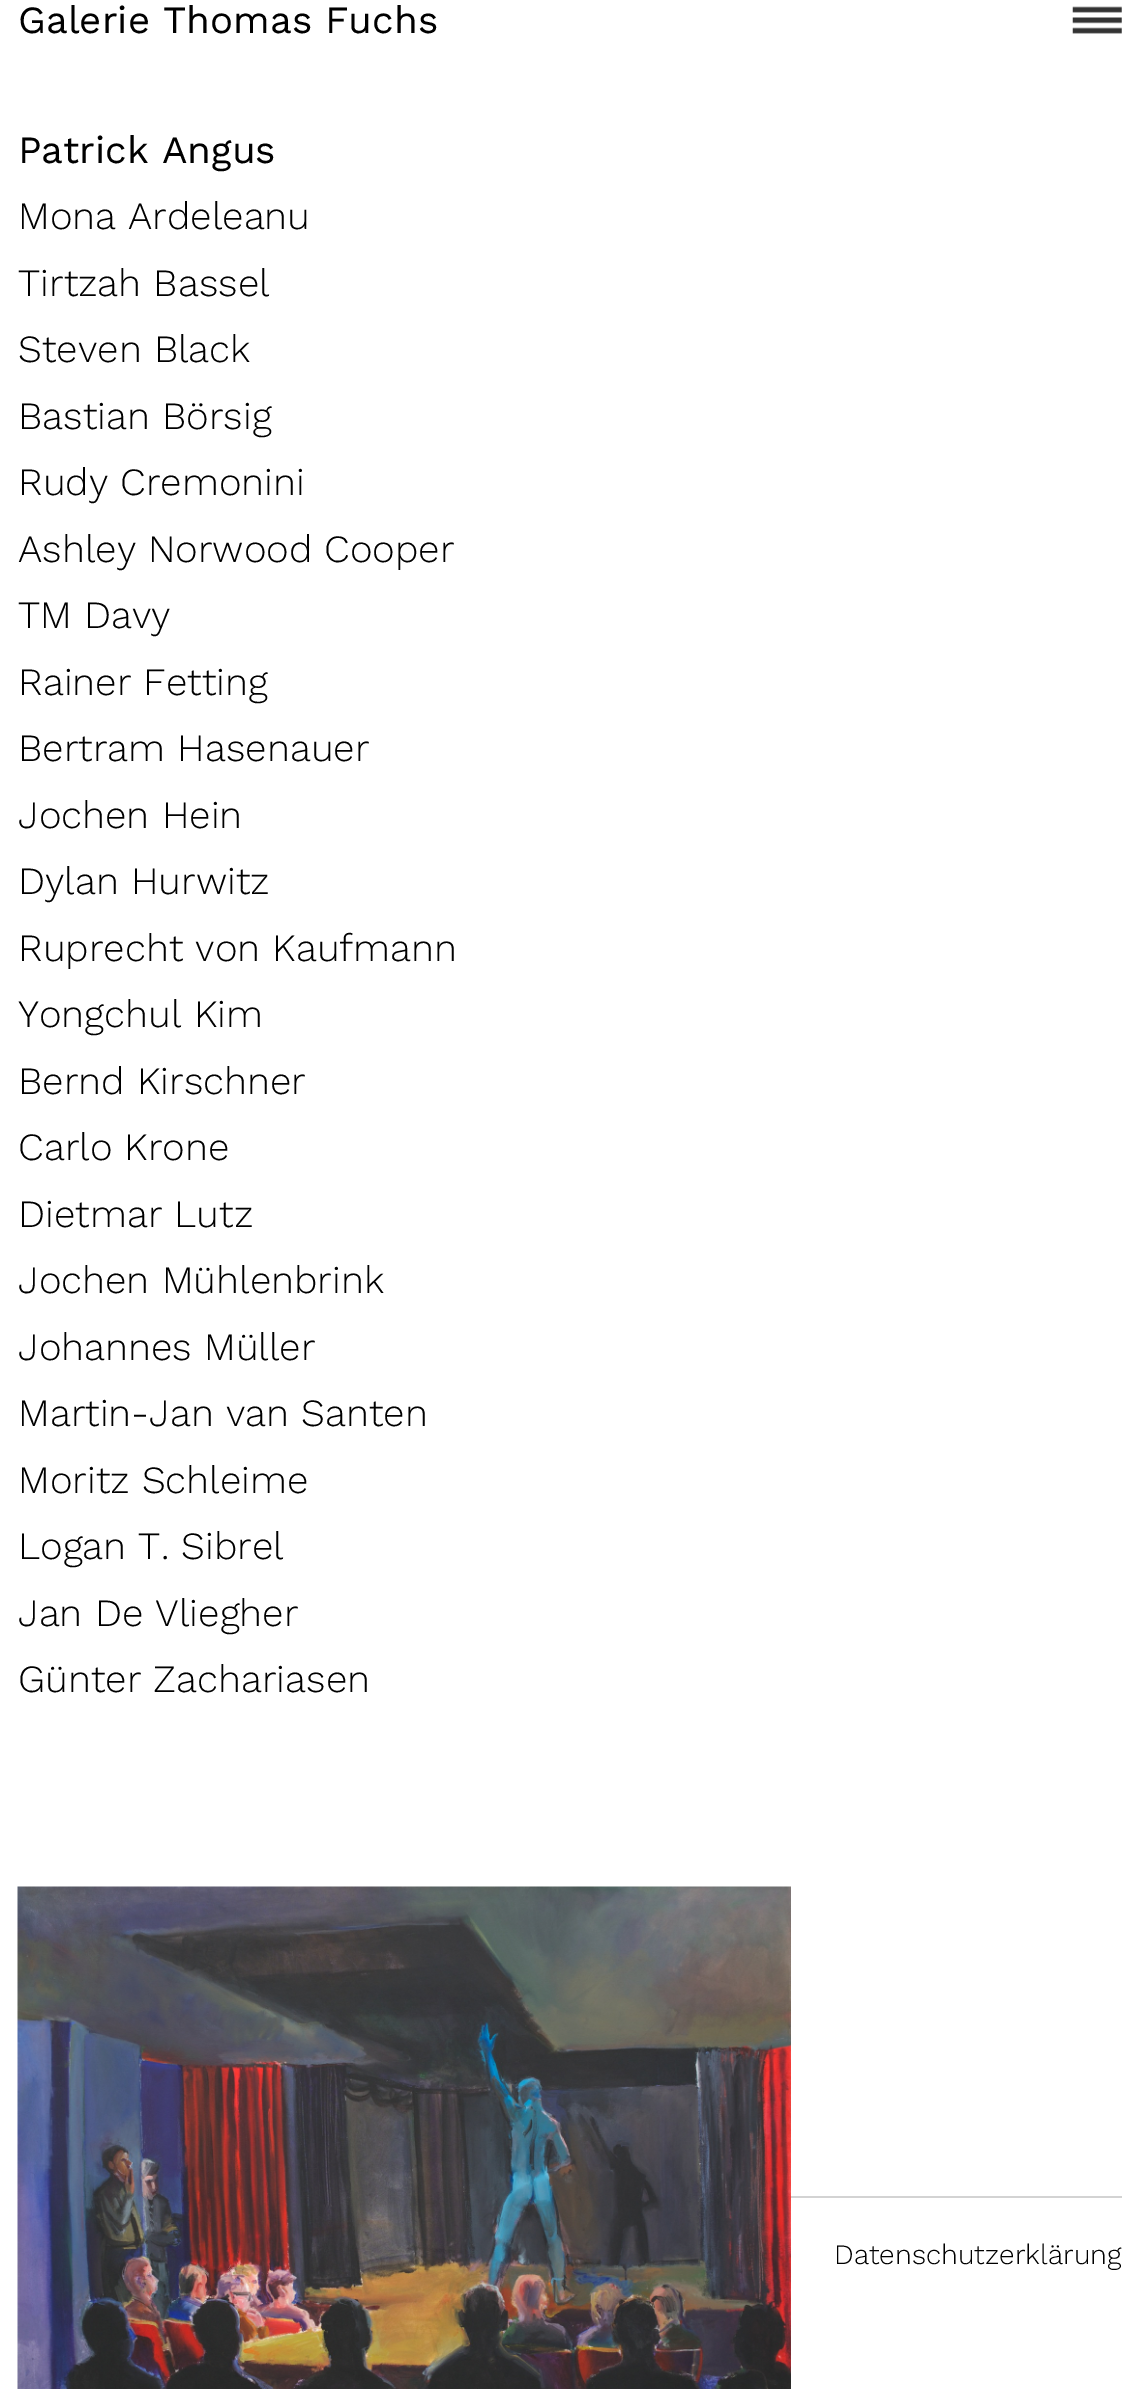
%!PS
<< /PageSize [1139 2389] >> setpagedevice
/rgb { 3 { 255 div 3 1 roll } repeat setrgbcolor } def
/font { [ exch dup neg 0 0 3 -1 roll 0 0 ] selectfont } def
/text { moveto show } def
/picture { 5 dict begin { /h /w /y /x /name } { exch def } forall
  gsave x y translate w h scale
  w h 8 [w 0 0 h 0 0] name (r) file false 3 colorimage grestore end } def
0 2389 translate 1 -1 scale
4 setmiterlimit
255 255 255 rgb
0 0 1139 2389 rectfill
(img_01.rgb) 1072 6 50 28 picture
(img_02.rgb) 17 1886 774 503 picture
211 211 211 rgb
791 2196 331 2 rectfill
/WorkSans-Regular 38.5 font
0 0 0 rgb
(Galerie Thomas Fuchs) 18 33 text
(Patrick Angus) 18 163 text
/WorkSans-Light 38.5 font
(Mona Ardeleanu) 18 229 text
(Tirtzah Bassel) 18 296 text
(Steven Black) 18 362 text
(Bastian Börsig) 18 429 text
(Rudy Cremonini) 18 495 text
(Ashley Norwood Cooper) 18 562 text
(TM Davy) 18 628 text
(Rainer Fetting) 18 695 text
(Bertram Hasenauer) 18 761 text
(Jochen Hein) 18 828 text
(Dylan Hurwitz) 18 894 text
(Ruprecht von Kaufmann) 18 961 text
(Yongchul Kim) 18 1027 text
(Bernd Kirschner) 18 1094 text
(Carlo Krone) 18 1160 text
(Dietmar Lutz) 18 1227 text
(Jochen Mühlenbrink) 18 1293 text
(Johannes Müller) 18 1360 text
(Martin-Jan van Santen) 18 1426 text
(Moritz Schleime) 18 1493 text
(Logan T. Sibrel) 18 1559 text
(Jan De Vliegher) 18 1626 text
(Günter Zachariasen) 18 1692 text
/WorkSans-Light 28 font
(Datenschutzerklärung) 834 2264 text
showpage
